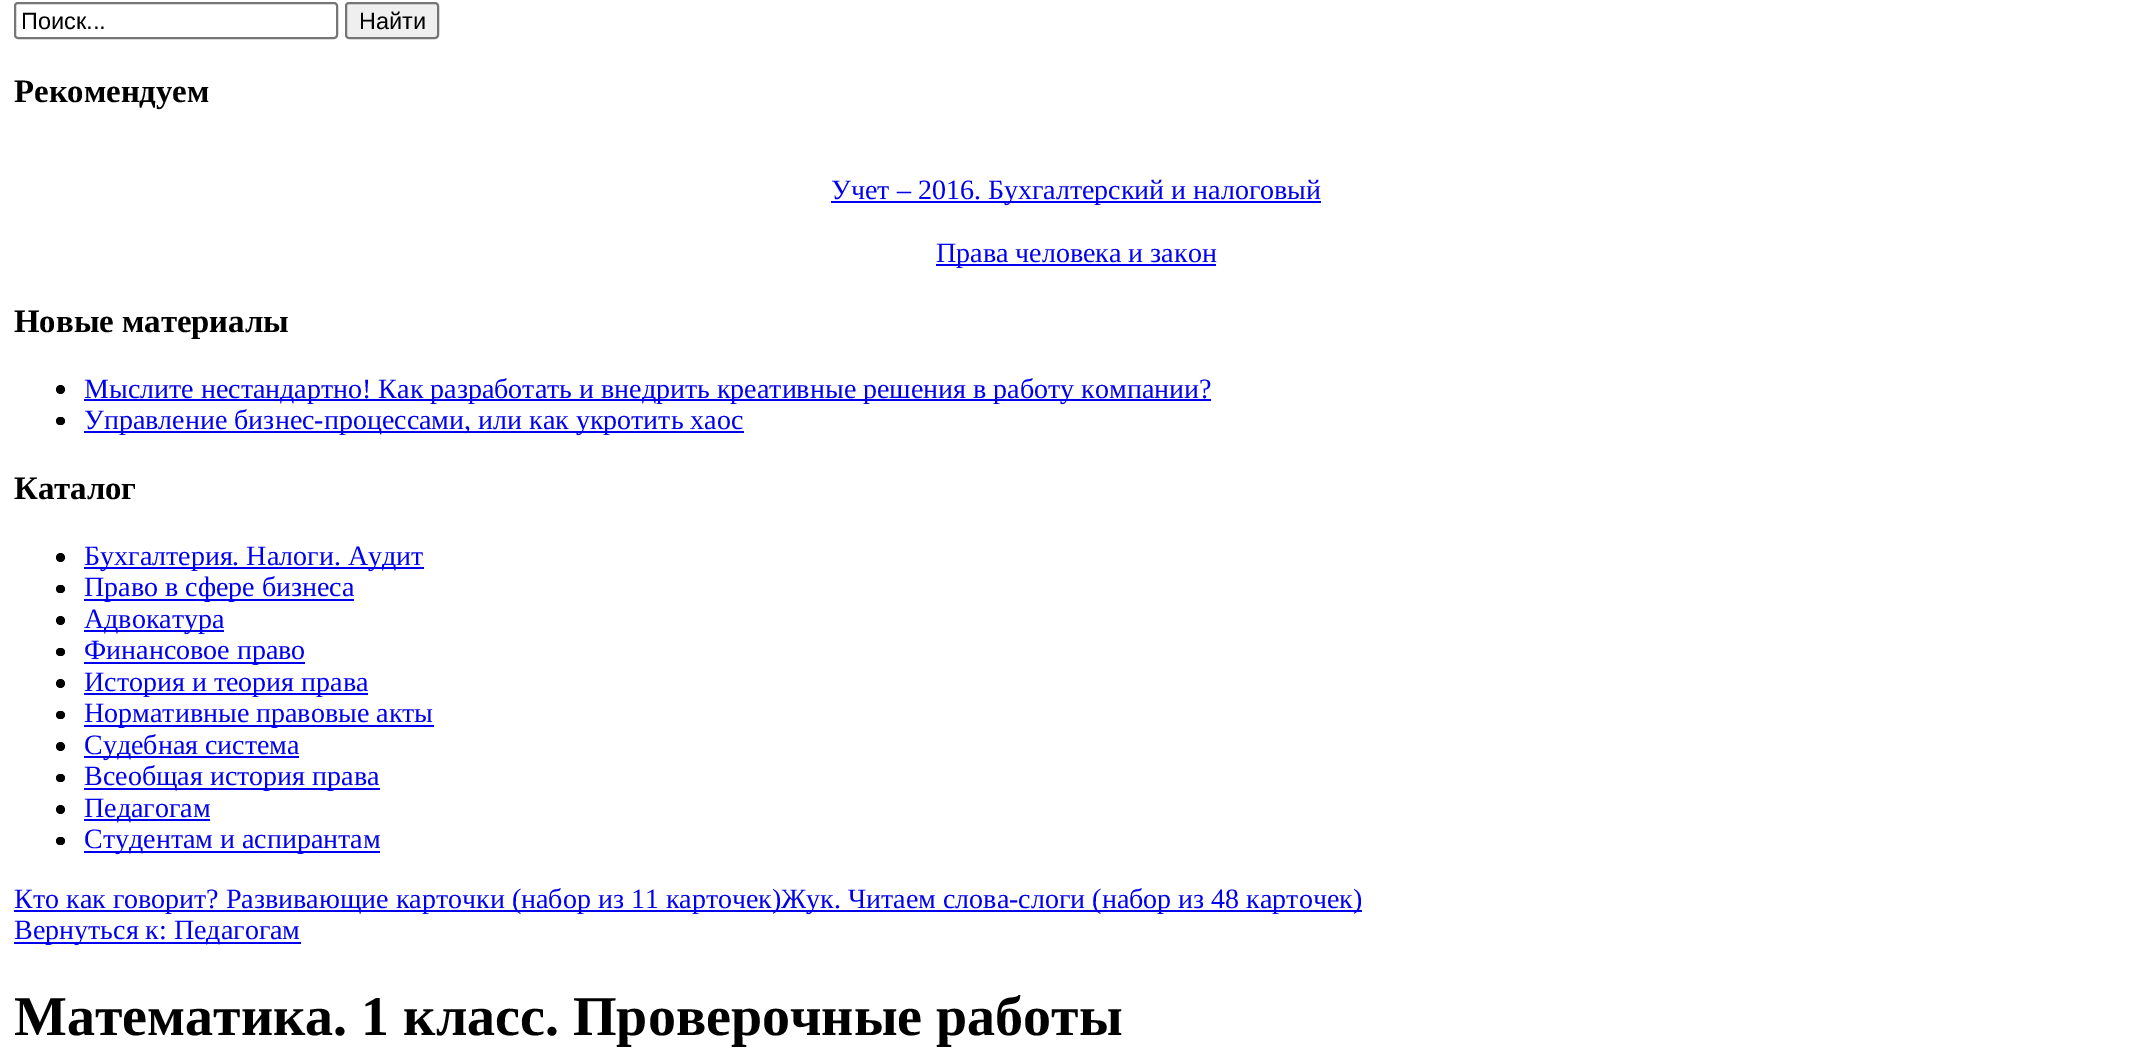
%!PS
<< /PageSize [2151 1053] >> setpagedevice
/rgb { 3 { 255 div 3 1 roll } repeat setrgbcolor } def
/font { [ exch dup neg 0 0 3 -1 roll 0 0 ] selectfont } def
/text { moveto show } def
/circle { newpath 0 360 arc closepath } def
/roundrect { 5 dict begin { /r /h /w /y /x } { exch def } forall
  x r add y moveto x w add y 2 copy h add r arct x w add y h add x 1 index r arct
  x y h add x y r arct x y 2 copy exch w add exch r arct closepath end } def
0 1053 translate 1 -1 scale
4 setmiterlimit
255 255 255 rgb
0 0 2151 1053 rectfill
118 118 118 rgb
2 setlinewidth
15 3 322 35 3 roundrect stroke
239 239 239 rgb
346 3 92 35 3 roundrect gsave fill grestore
118 118 118 rgb
stroke
0 0 238 rgb
831 201 490 2 rectfill
936 264 280 2 rectfill
0 0 0 rgb
60.5 389.5 4.5 circle fill
0 0 238 rgb
84 399 1127 2 rectfill
0 0 0 rgb
56 417 9 8 4 roundrect fill
0 0 238 rgb
84 431 660 2 rectfill
0 0 0 rgb
60.5 557.5 4.5 circle fill
0 0 238 rgb
84 567 340 2 rectfill
0 0 0 rgb
56 585 9 8 4 roundrect fill
0 0 238 rgb
84 599 270 2 rectfill
0 0 0 rgb
60.5 620.5 4.5 circle fill
0 0 238 rgb
84 630 140 2 rectfill
0 0 0 rgb
56 648 9 8 4 roundrect fill
0 0 238 rgb
84 662 221 2 rectfill
0 0 0 rgb
60.5 683.5 4.5 circle fill
0 0 238 rgb
84 693 284 2 rectfill
0 0 0 rgb
56 711 9 8 4 roundrect fill
0 0 238 rgb
84 725 350 2 rectfill
0 0 0 rgb
60.5 746.5 4.5 circle fill
0 0 238 rgb
84 756 215 2 rectfill
0 0 0 rgb
56 774 9 8 4 roundrect fill
0 0 238 rgb
84 788 296 2 rectfill
0 0 0 rgb
60.5 809.5 4.5 circle fill
0 0 238 rgb
84 819 126 2 rectfill
0 0 0 rgb
56 837 9 8 4 roundrect fill
0 0 238 rgb
84 851 296 2 rectfill
14 910 1348 2 rectfill
14 942 287 2 rectfill
/LiberationSans-Regular 23.5 font
0 0 0 rgb
(Поиск...) 21 29 text
(Найти) 359 29 text
/LiberationSerif-Bold 32.75 font
(Рекомендуем) 14 102 text
/LiberationSerif-Regular 28 font
0 0 238 rgb
(Учет – 2016. Бухгалтерский и налоговый) 831 199 text
(Права человека и закон) 936 262 text
/LiberationSerif-Bold 32.75 font
0 0 0 rgb
(Новые материалы) 14 332 text
/LiberationSerif-Regular 28 font
0 0 238 rgb
(Мыслите нестандартно! Как разработать и внедрить креативные решения в работу компании?) 84 398 text
(Управление бизнес-процессами, или как укротить хаос) 84 429 text
/LiberationSerif-Bold 32.75 font
0 0 0 rgb
(Каталог) 14 499 text
/LiberationSerif-Regular 28 font
0 0 238 rgb
(Бухгалтерия. Налоги. Аудит) 84 565 text
(Право в сфере бизнеса) 84 596 text
(Адвокатура) 84 628 text
(Финансовое право) 84 659 text
(История и теория права) 84 691 text
(Нормативные правовые акты) 84 722 text
(Судебная система) 84 754 text
(Всеобщая история права) 84 785 text
(Педагогам) 84 817 text
(Студентам и аспирантам) 84 848 text
(Кто как говорит? Развивающие карточки \(набор из 11 карточек\)Жук. Читаем слова-слоги \(набор из 48 карточек\)) 14 908 text
(Вернуться к: Педагогам) 14 939 text
/LiberationSerif-Bold 56 font
0 0 0 rgb
(Математика. 1 класс. Проверочные работы) 14 1035 text
showpage
